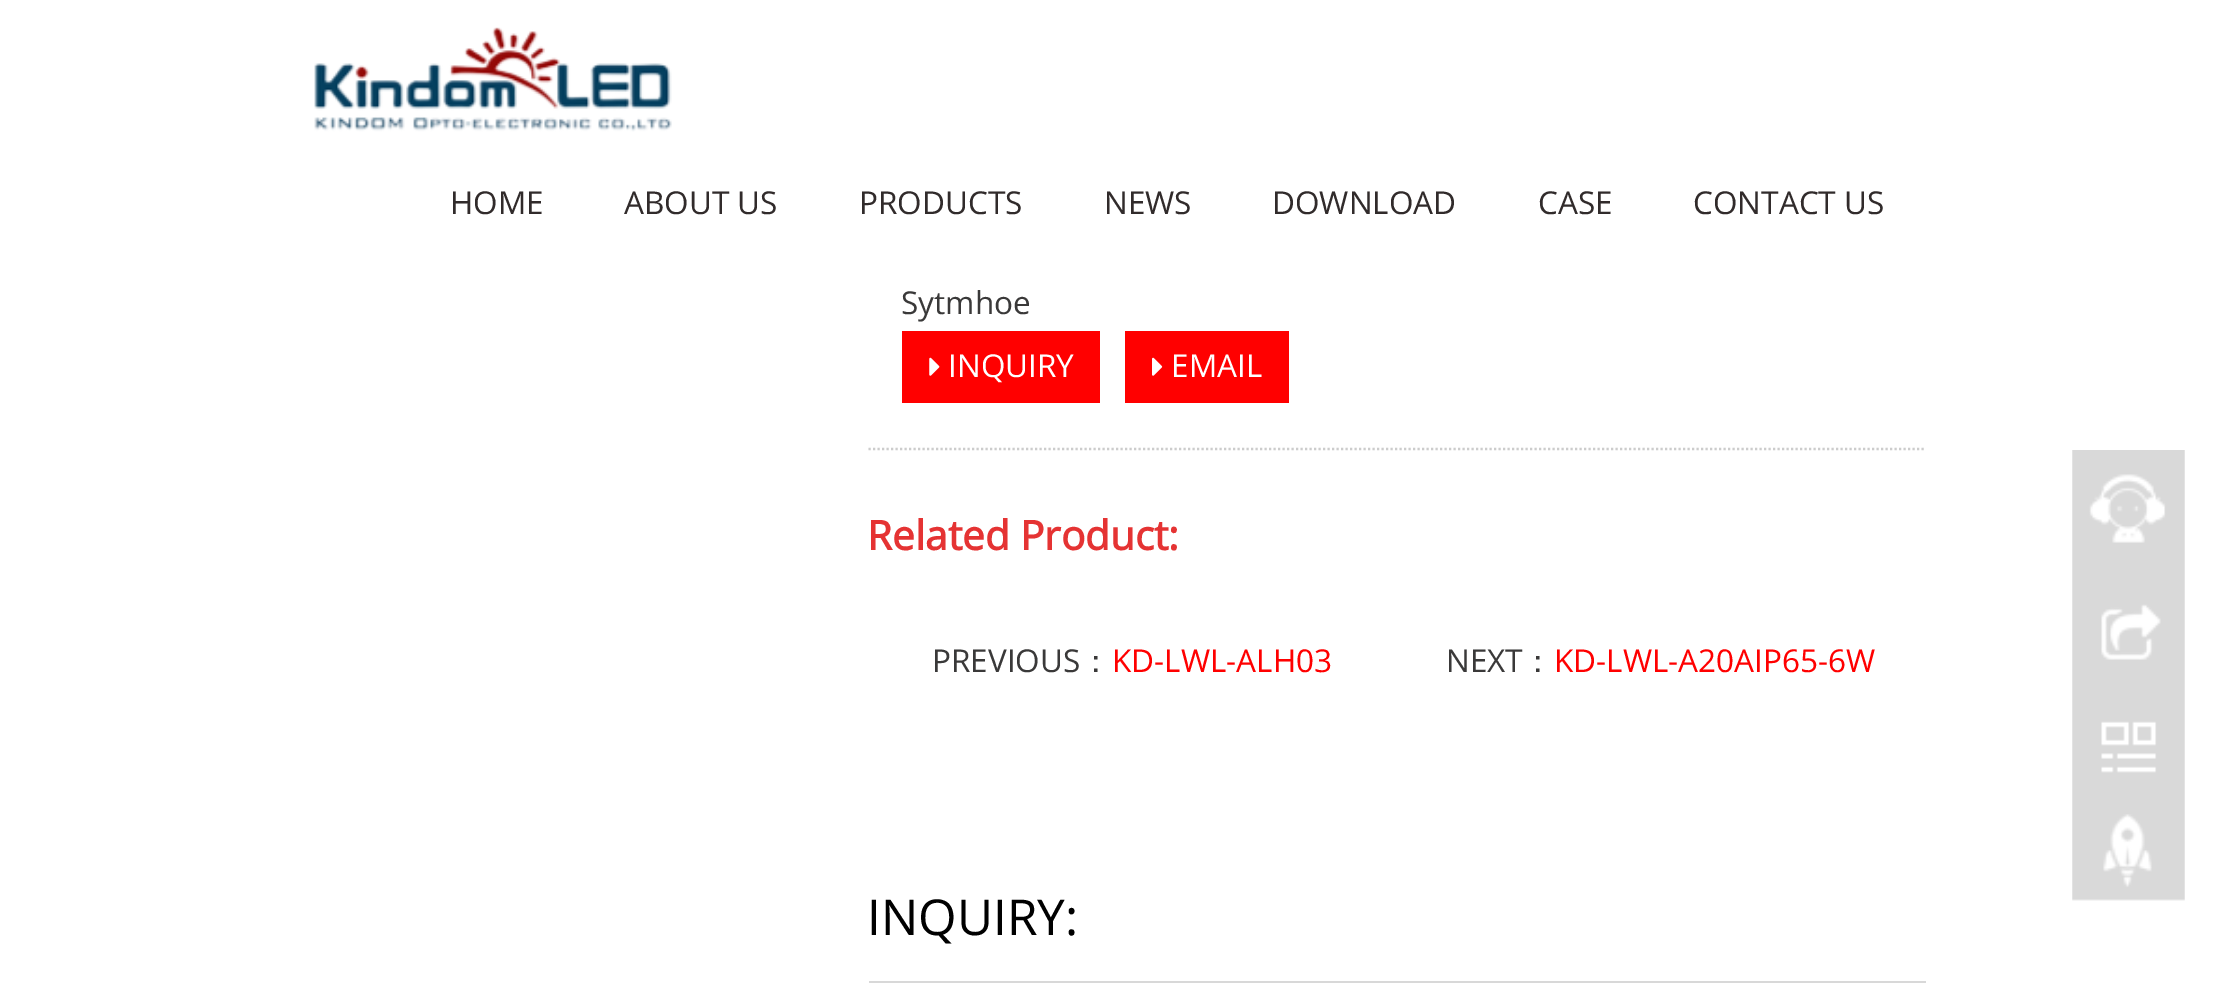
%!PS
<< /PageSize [2229 996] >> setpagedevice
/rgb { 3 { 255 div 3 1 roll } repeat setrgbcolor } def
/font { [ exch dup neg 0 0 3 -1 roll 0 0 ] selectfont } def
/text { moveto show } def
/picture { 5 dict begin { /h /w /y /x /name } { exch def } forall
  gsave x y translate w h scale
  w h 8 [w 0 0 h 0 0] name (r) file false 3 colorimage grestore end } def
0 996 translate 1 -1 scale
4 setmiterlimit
255 255 255 rgb
0 0 2229 996 rectfill
(img_01.rgb) 314 27 358 105 picture
255 0 0 rgb
902 331 198 72 rectfill
(img_02.rgb) 929 357 11 19 picture
1125 331 164 72 rectfill
(img_03.rgb) 1152 357 11 19 picture
204 204 204 rgb
2.2 setlinewidth
[2.25 2.25] 0 setdash
868.5 449 moveto 1057.5 0 rlineto stroke
216 216 216 rgb
869 981 1057 2 rectfill
(img_04.rgb) 2072 450 113 451 picture
/OpenSans-Regular 31.5 font
49 43 43 rgb
(HOME) 450 214 text
(ABOUT US) 624 214 text
(PRODUCTS) 859 214 text
(NEWS) 1104 214 text
(DOWNLOAD) 1272 214 text
(CASE) 1538 214 text
(CONTACT US) 1693 214 text
58 57 57 rgb
(Sytmhoe) 901 314 text
255 255 255 rgb
(INQUIRY) 948 377 text
(EMAIL) 1171 377 text
/OpenSans-Bold 40.5 font
229 51 51 rgb
(Related Product:) 867 550 text
/OpenSans-Regular 31.5 font
58 57 57 rgb
(PREVIOUS) 932 672 text
/WenQuanYiZenHei-Medium 31.5 font
(：) 1080 672 text
/OpenSans-Regular 31.5 font
255 0 0 rgb
(KD-LWL-ALH03) 1112 672 text
58 57 57 rgb
(NEXT) 1446 672 text
/WenQuanYiZenHei-Medium 31.5 font
(：) 1522 672 text
/OpenSans-Regular 31.5 font
255 0 0 rgb
(KD-LWL-A20AIP65-6W) 1554 672 text
/OpenSans-Regular 49.5 font
0 0 0 rgb
(INQUIRY:) 867 935 text
showpage
